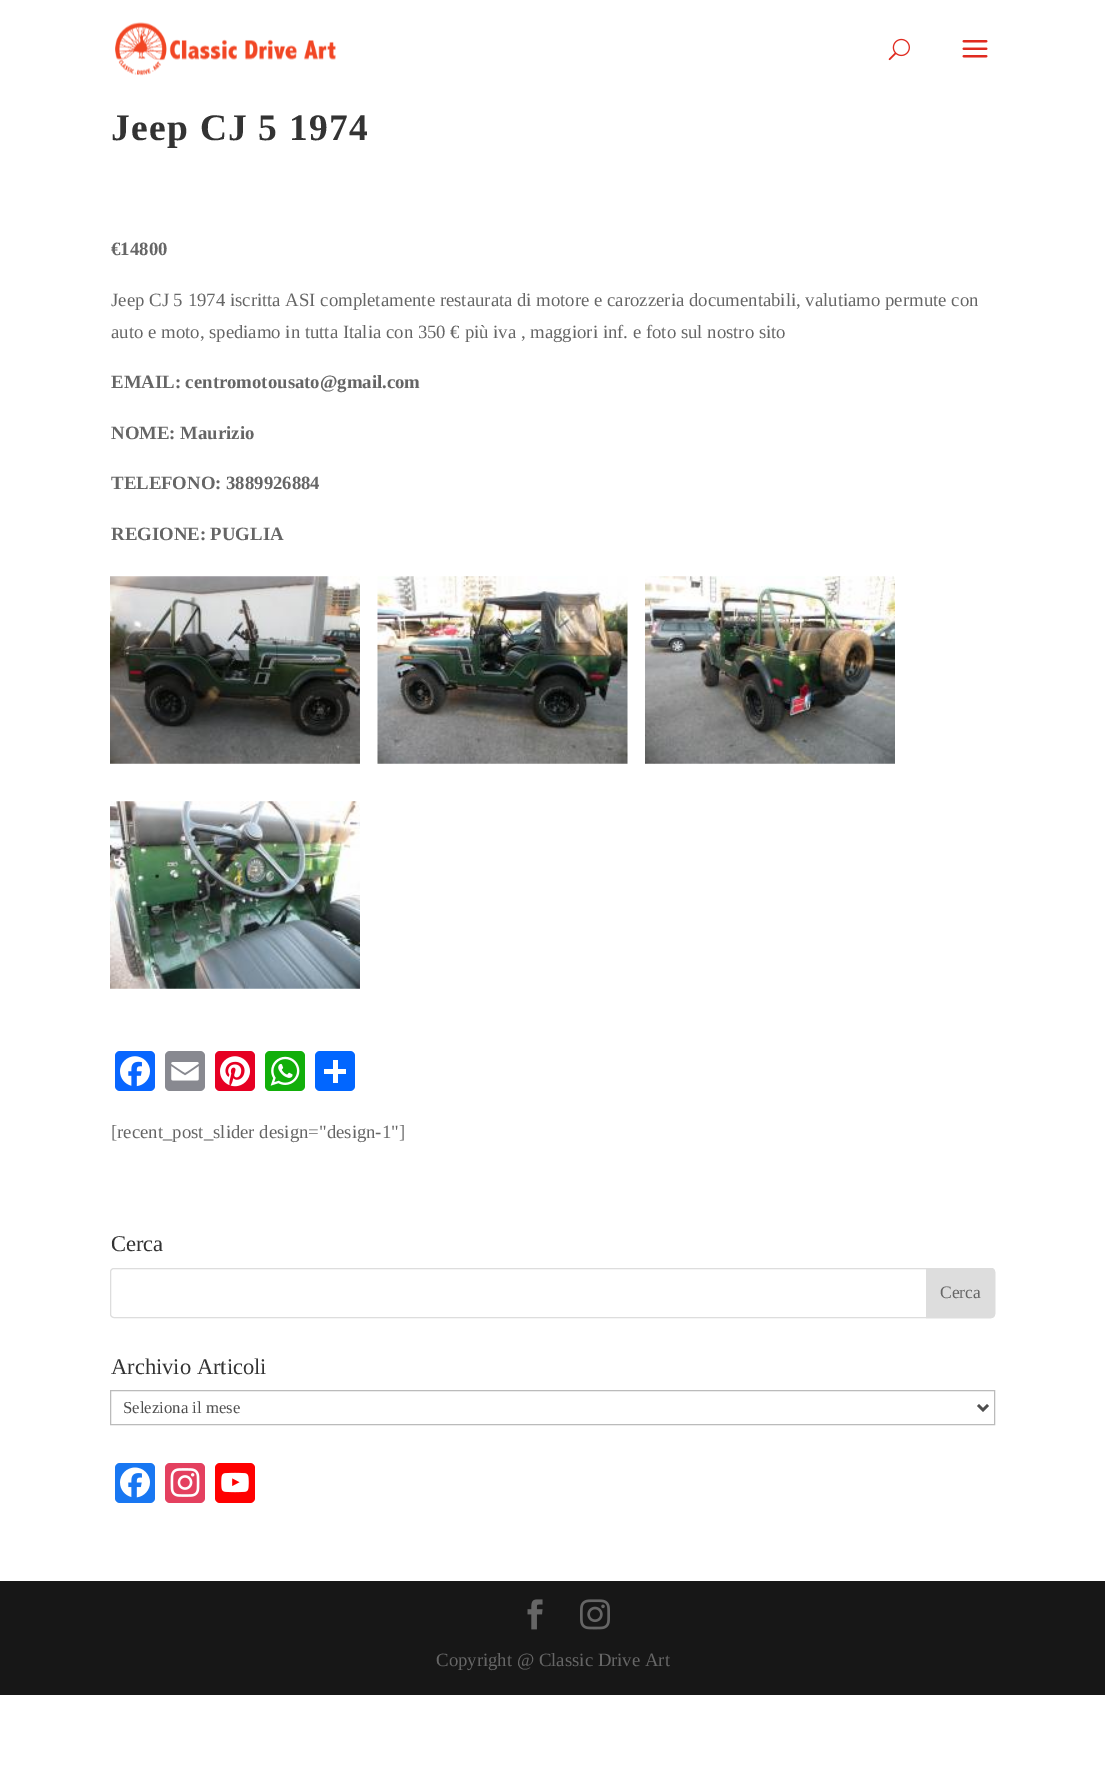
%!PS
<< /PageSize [1105 1789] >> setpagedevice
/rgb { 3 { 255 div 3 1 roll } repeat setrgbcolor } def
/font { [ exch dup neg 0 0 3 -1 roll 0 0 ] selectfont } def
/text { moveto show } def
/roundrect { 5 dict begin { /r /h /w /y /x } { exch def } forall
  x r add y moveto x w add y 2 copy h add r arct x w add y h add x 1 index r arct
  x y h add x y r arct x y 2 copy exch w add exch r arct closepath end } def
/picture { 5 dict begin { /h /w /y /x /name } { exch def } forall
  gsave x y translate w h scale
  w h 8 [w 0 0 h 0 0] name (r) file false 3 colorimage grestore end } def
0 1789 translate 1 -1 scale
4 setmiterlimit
255 255 255 rgb
0 0 1105 1789 rectfill
(img_01.rgb) 115 22 221 54 picture
(img_02.rgb) 888 38 22 23 picture
(img_03.rgb) 962 40 26 18 picture
(img_04.rgb) 110 576 250 188 picture
(img_05.rgb) 377 576 251 188 picture
(img_06.rgb) 645 576 250 188 picture
(img_07.rgb) 110 801 250 188 picture
8 102 255 rgb
115 1051 40 40 5 roundrect fill
(img_08.rgb) 120 1056 30 31 picture
136 137 144 rgb
165 1051 40 40 5 roundrect fill
(img_09.rgb) 171 1062 28 19 picture
230 0 35 rgb
215 1051 40 40 5 roundrect fill
(img_10.rgb) 220 1056 30 31 picture
18 175 10 rgb
265 1051 40 40 5 roundrect fill
(img_11.rgb) 270 1056 30 30 picture
1 102 255 rgb
315 1051 40 40 5 roundrect fill
255 255 255 rgb
333 1060 5 23 rectfill
324 1069 22 5 rectfill
221 221 221 rgb
110.5 1268.5 884 49 3.5 roundrect stroke
926.5 1268.5 moveto 64.5 0 rlineto 2 0 3.5 1.5 3.5 3.5 rcurveto 0 42 rlineto 0 2 -1.5 3.5 -3.5 3.5 rcurveto -64.5 0 rlineto closepath gsave fill grestore
stroke
187 187 187 rgb
110.5 1390.5 884 34 rectstroke
78 78 78 rgb
2.5 setlinewidth
978 1405 moveto 5 5 rlineto 5 -5 rlineto stroke
24 119 242 rgb
115 1463 40 40 5 roundrect fill
(img_12.rgb) 120 1467 30 31 picture
228 64 95 rgb
165 1463 40 40 5 roundrect fill
(img_13.rgb) 170 1468 30 29 picture
255 0 0 rgb
215 1463 40 40 5 roundrect fill
(img_14.rgb) 221 1472 28 21 picture
23 23 23 rgb
0 1581 1105 114 rectfill
(img_15.rgb) 527 1599 16 31 picture
(img_16.rgb) 580 1599 30 31 picture
/LiberationSerif-Bold 37.5 font
51 51 51 rgb
111 140 moveto 1.25 0 (Jeep CJ 5 1974) ashow
/LiberationSerif-Bold 18.75 font
102 102 102 rgb
(€14800) 111 255 text
/LiberationSerif-Regular 18.75 font
(Jeep CJ 5 1974 iscritta ASI completamente restaurata di motore e carozzeria documentabili, valutiamo permute con) 111 306 text
(auto e moto, spediamo in tutta Italia con 350 € più iva , maggiori inf. e foto sul nostro sito) 111 338 text
/LiberationSerif-Bold 18.75 font
(EMAIL: centromotousato@gmail.com) 111 388 text
(NOME: Maurizio) 111 439 text
(TELEFONO: 3889926884) 111 489 text
(REGIONE: PUGLIA) 111 540 text
/LiberationSerif-Regular 18.75 font
([recent_post_slider design="design-1"]) 111 1138 text
/LiberationSerif-Regular 22.5 font
51 51 51 rgb
(Cerca) 111 1251 text
/LiberationSerif-Regular 17.5 font
102 102 102 rgb
(Cerca) 940 1298 text
/LiberationSerif-Regular 22.5 font
51 51 51 rgb
(Archivio Articoli) 111 1374 text
/LiberationSerif-Regular 16.75 font
78 78 78 rgb
(Seleziona il mese) 123 1413 text
/LiberationSerif-Regular 18.75 font
102 102 102 rgb
(Copyright @ Classic Drive Art) 436 1666 text
showpage
